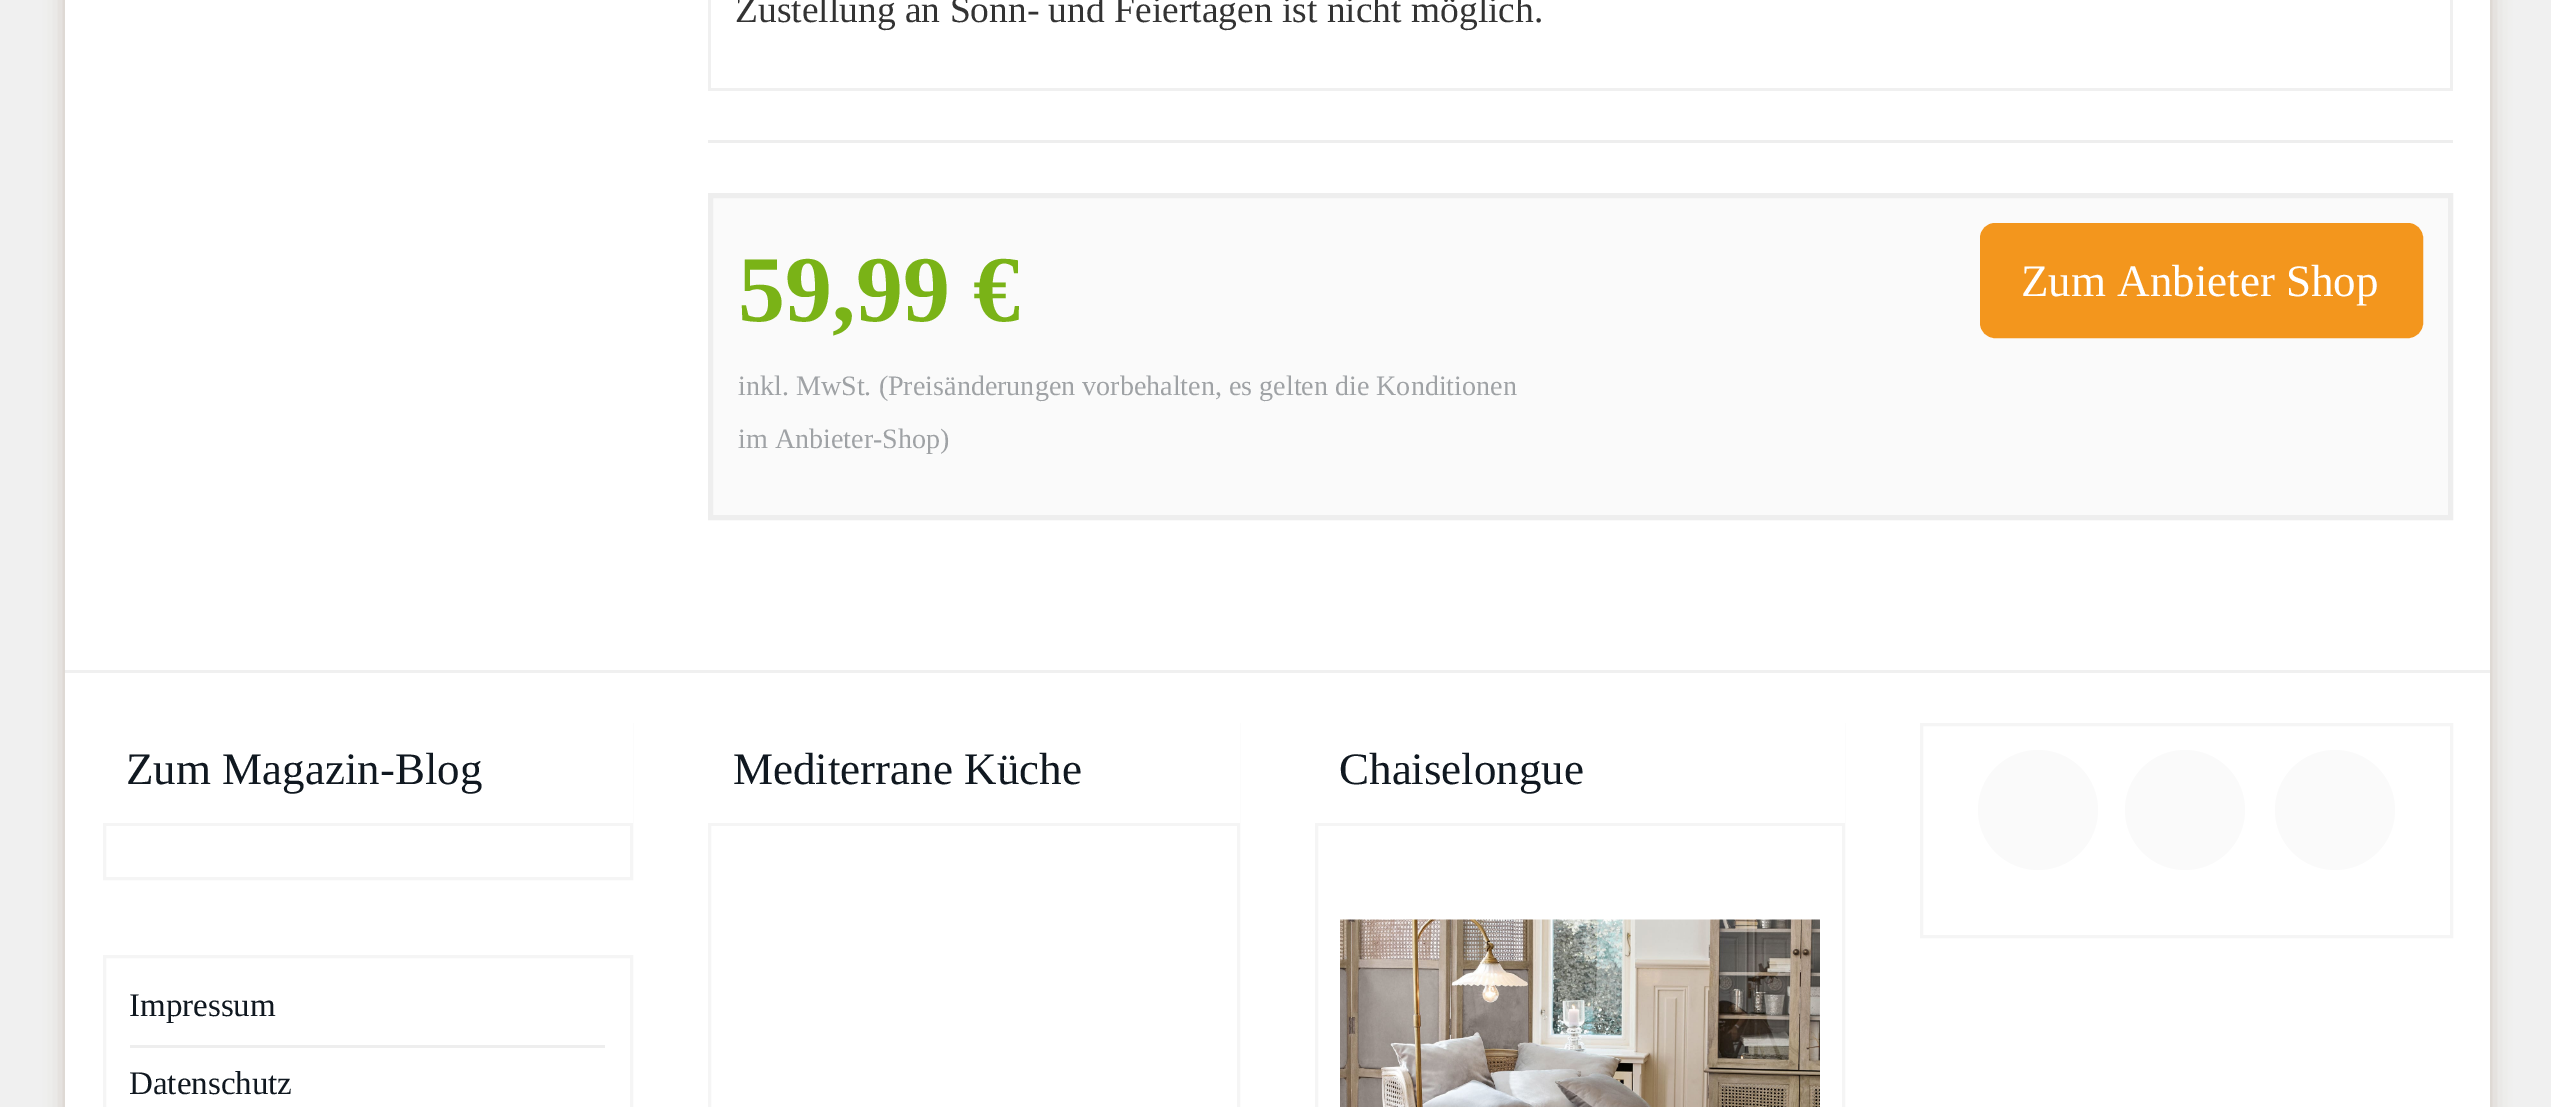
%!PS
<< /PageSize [2551 1107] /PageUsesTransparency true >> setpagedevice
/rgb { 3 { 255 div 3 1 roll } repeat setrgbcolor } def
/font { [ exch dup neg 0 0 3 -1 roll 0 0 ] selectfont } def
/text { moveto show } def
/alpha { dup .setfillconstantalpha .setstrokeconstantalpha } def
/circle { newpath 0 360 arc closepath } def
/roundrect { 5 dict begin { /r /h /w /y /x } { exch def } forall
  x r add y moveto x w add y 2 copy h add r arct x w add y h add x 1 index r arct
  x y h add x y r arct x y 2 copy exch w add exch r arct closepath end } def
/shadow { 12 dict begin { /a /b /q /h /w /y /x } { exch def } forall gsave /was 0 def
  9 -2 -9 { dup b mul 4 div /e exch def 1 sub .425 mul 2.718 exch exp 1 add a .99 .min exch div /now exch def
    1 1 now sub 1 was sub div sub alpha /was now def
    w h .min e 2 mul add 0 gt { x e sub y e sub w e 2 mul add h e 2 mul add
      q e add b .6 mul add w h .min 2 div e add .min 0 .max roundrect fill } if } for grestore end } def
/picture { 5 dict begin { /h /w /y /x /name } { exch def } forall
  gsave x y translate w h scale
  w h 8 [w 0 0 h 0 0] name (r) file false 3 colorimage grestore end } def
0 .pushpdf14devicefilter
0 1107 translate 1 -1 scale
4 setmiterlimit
240 240 240 rgb
0 0 2551 1107 rectfill
109 56 25 rgb
65 -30 2425 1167 0 10 0.25 shadow
255 255 255 rgb
65 0 2425 1107 rectfill
240 240 240 rgb
2450 0 3 90 rectfill
708 88 1745 3 rectfill
708 0 3 90 rectfill
238 238 238 rgb
708 140 1745 3 rectfill
250 250 250 rgb
710.5 195.5 moveto 1740 0 rlineto 0 322 rlineto -1740 0 rlineto closepath gsave fill grestore
238 238 238 rgb
5 setlinewidth
stroke
243 150 29 rgb
1981.5 224.5 440 112 13.5 roundrect gsave fill grestore
3 setlinewidth
stroke
240 240 240 rgb
65 670 2425 3 rectfill
245 245 245 rgb
104.5 724.5 527 154 rectstroke
255 255 255 rgb
103 723 530 100 rectfill
245 245 245 rgb
103 823 530 3 rectfill
104.5 956.5 527 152 rectstroke
238 238 238 rgb
130 1045 475 3 rectfill
245 245 245 rgb
709.5 724.5 529 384 rectstroke
255 255 255 rgb
708 723 532 100 rectfill
245 245 245 rgb
708 823 532 3 rectfill
1316.5 724.5 527 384 rectstroke
255 255 255 rgb
1315 723 530 100 rectfill
245 245 245 rgb
1315 823 530 3 rectfill
(img_01.rgb) 1340 919 480 188 picture
1921.5 724.5 530 212 rectstroke
250 250 250 rgb
2038 810 60 circle fill
2185 810 60 circle fill
2335 810 60 circle fill
/LiberationSerif-Regular 37.5 font
51 51 51 rgb
(Zustellung an Sonn- und Feiertagen ist nicht möglich.) 735 22 text
/LiberationSerif-Bold 94 font
122 179 23 rgb
(59,99 €) 738 321 text
/LiberationSerif-Regular 28.1 font
159 162 165 rgb
(inkl. MwSt. \(Preisänderungen vorbehalten, es gelten die Konditionen) 738 395 text
(im Anbieter-Shop\)) 738 448 text
/LiberationSerif-Regular 45 font
255 255 255 rgb
(Zum Anbieter Shop) 2021 296 text
16 24 32 rgb
(Zum Magazin-Blog) 126 784 text
/LiberationSerif-Regular 33 font
(Impressum) 129 1016 text
(Datenschutz) 129 1094 text
/LiberationSerif-Regular 45 font
(Mediterrane Küche) 733 784 text
(Chaiselongue) 1339 784 text
.poppdf14devicefilter showpage
